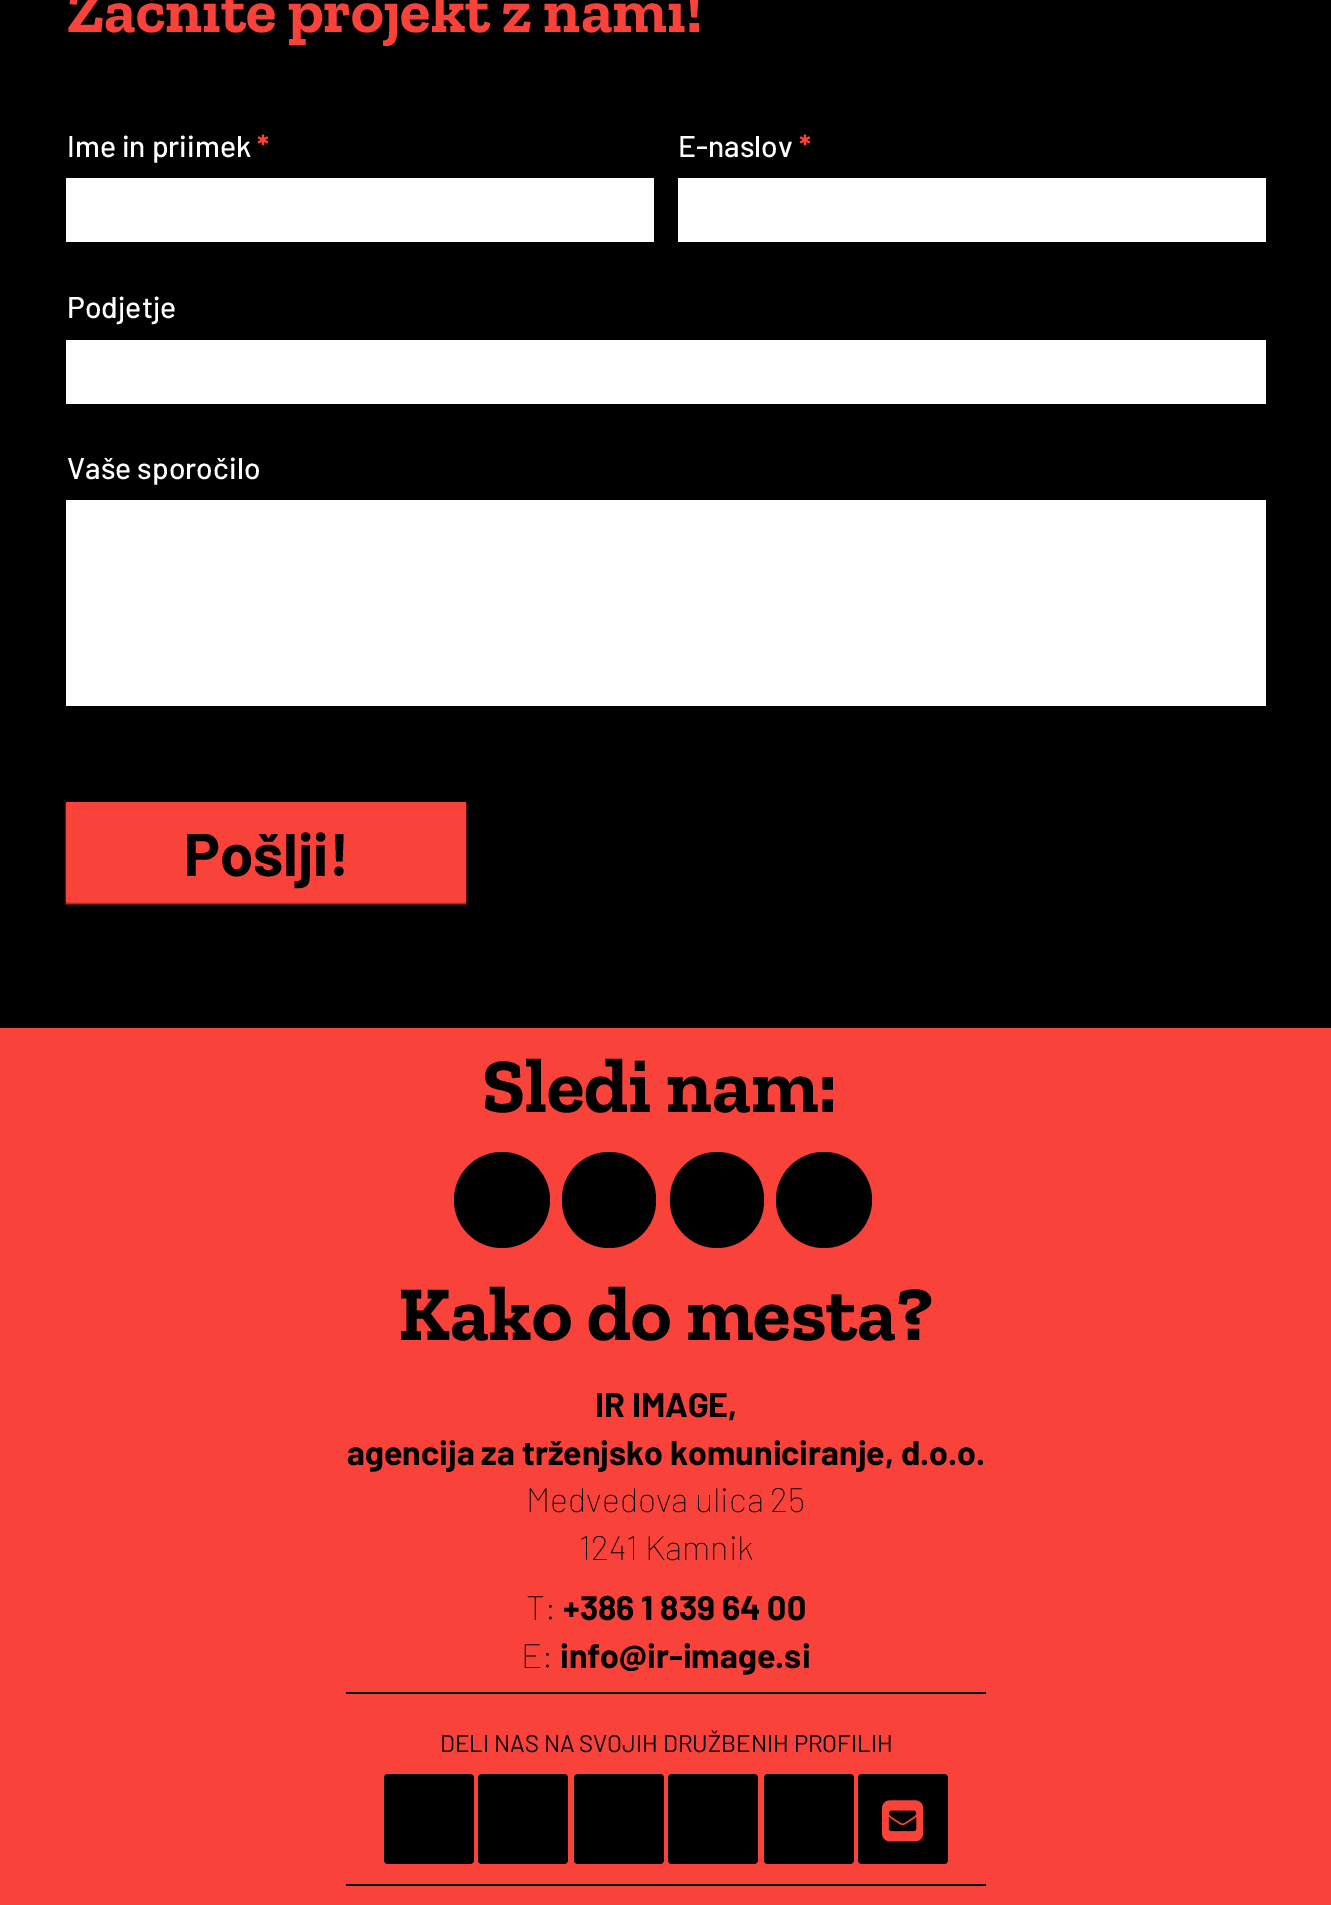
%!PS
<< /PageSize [1331 1905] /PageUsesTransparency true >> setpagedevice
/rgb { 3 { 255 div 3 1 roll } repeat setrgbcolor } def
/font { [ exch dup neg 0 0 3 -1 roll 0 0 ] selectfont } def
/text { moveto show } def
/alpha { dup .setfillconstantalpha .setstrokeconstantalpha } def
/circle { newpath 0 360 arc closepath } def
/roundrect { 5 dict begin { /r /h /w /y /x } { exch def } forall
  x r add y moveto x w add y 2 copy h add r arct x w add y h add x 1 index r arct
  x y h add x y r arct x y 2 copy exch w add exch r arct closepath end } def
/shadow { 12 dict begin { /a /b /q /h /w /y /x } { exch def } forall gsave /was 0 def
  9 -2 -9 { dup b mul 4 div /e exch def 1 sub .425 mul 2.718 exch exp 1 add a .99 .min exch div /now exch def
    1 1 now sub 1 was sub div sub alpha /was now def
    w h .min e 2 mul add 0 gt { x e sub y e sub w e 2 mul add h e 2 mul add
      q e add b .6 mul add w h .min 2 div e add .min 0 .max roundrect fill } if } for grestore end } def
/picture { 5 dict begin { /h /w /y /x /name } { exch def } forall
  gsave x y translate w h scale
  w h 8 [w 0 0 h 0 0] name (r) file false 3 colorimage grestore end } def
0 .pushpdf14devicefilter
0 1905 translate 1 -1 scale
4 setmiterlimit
0 0 0 rgb
0 0 1331 1905 rectfill
255 255 255 rgb
66 178 588 64 rectfill
678 178 588 64 rectfill
66 340 1200 64 rectfill
66 500 1200 206 rectfill
249 66 58 rgb
66 804 400 100 0 1 1 shadow
66 802 400 100 rectfill
0 1028 1331 877 rectfill
0 0 0 rgb
502 1200 48 circle fill
562 1152 94 96 47 roundrect fill
670 1152 94 96 47 roundrect fill
824 1200 48 circle fill
346 1692 640 2 rectfill
346 1884 640 2 rectfill
384 1774 90 90 4 roundrect fill
478 1774 90 90 4 roundrect fill
574 1774 90 90 4 roundrect fill
668 1774 90 90 4 roundrect fill
764 1774 90 90 4 roundrect fill
858 1774 90 90 4 roundrect fill
(img_01.rgb) 882 1800 42 42 picture
/ZillaSlab-Bold 62.6 font
249 66 58 rgb
(Začnite projekt z nami!) 67 32 text
/Barlow-Medium 30 font
255 255 255 rgb
(Ime in priimek) 67 157 text
/Barlow-Bold 30 font
249 66 58 rgb
(*) 257 157 text
/Barlow-Medium 30 font
255 255 255 rgb
(E-naslov) 678 157 text
/Barlow-Bold 30 font
249 66 58 rgb
(*) 799 157 text
/Barlow-Medium 30 font
255 255 255 rgb
(Podjetje) 67 318 text
(Vaše sporočilo) 67 479 text
/Barlow-Bold 60 font
0 0 0 rgb
(Pošlji!) 184 876 text
/ZillaSlab-Bold 77.25 font
(Sledi nam:) 482 1112 text
(Kako do mesta?) 398 1340 text
/Barlow-Bold 34 font
(IR IMAGE,) 595 1417 text
(agencija za trženjsko komuniciranje, d.o.o.) 347 1465 text
/Barlow-ExtraLight 34 font
(Medvedova ulica 25) 526 1512 text
(1241 Kamnik) 579 1560 text
(T:) 526 1620 text
/Barlow-Bold 34 font
(+386 1 839 64 00) 563 1620 text
/Barlow-ExtraLight 34 font
(E:) 521 1668 text
/Barlow-Bold 34 font
(info@ir-image.si) 560 1668 text
/Barlow-Regular 24 font
(DELI NAS NA SVOJIH DRUŽBENIH PROFILIH) 440 1752 text
.poppdf14devicefilter showpage
